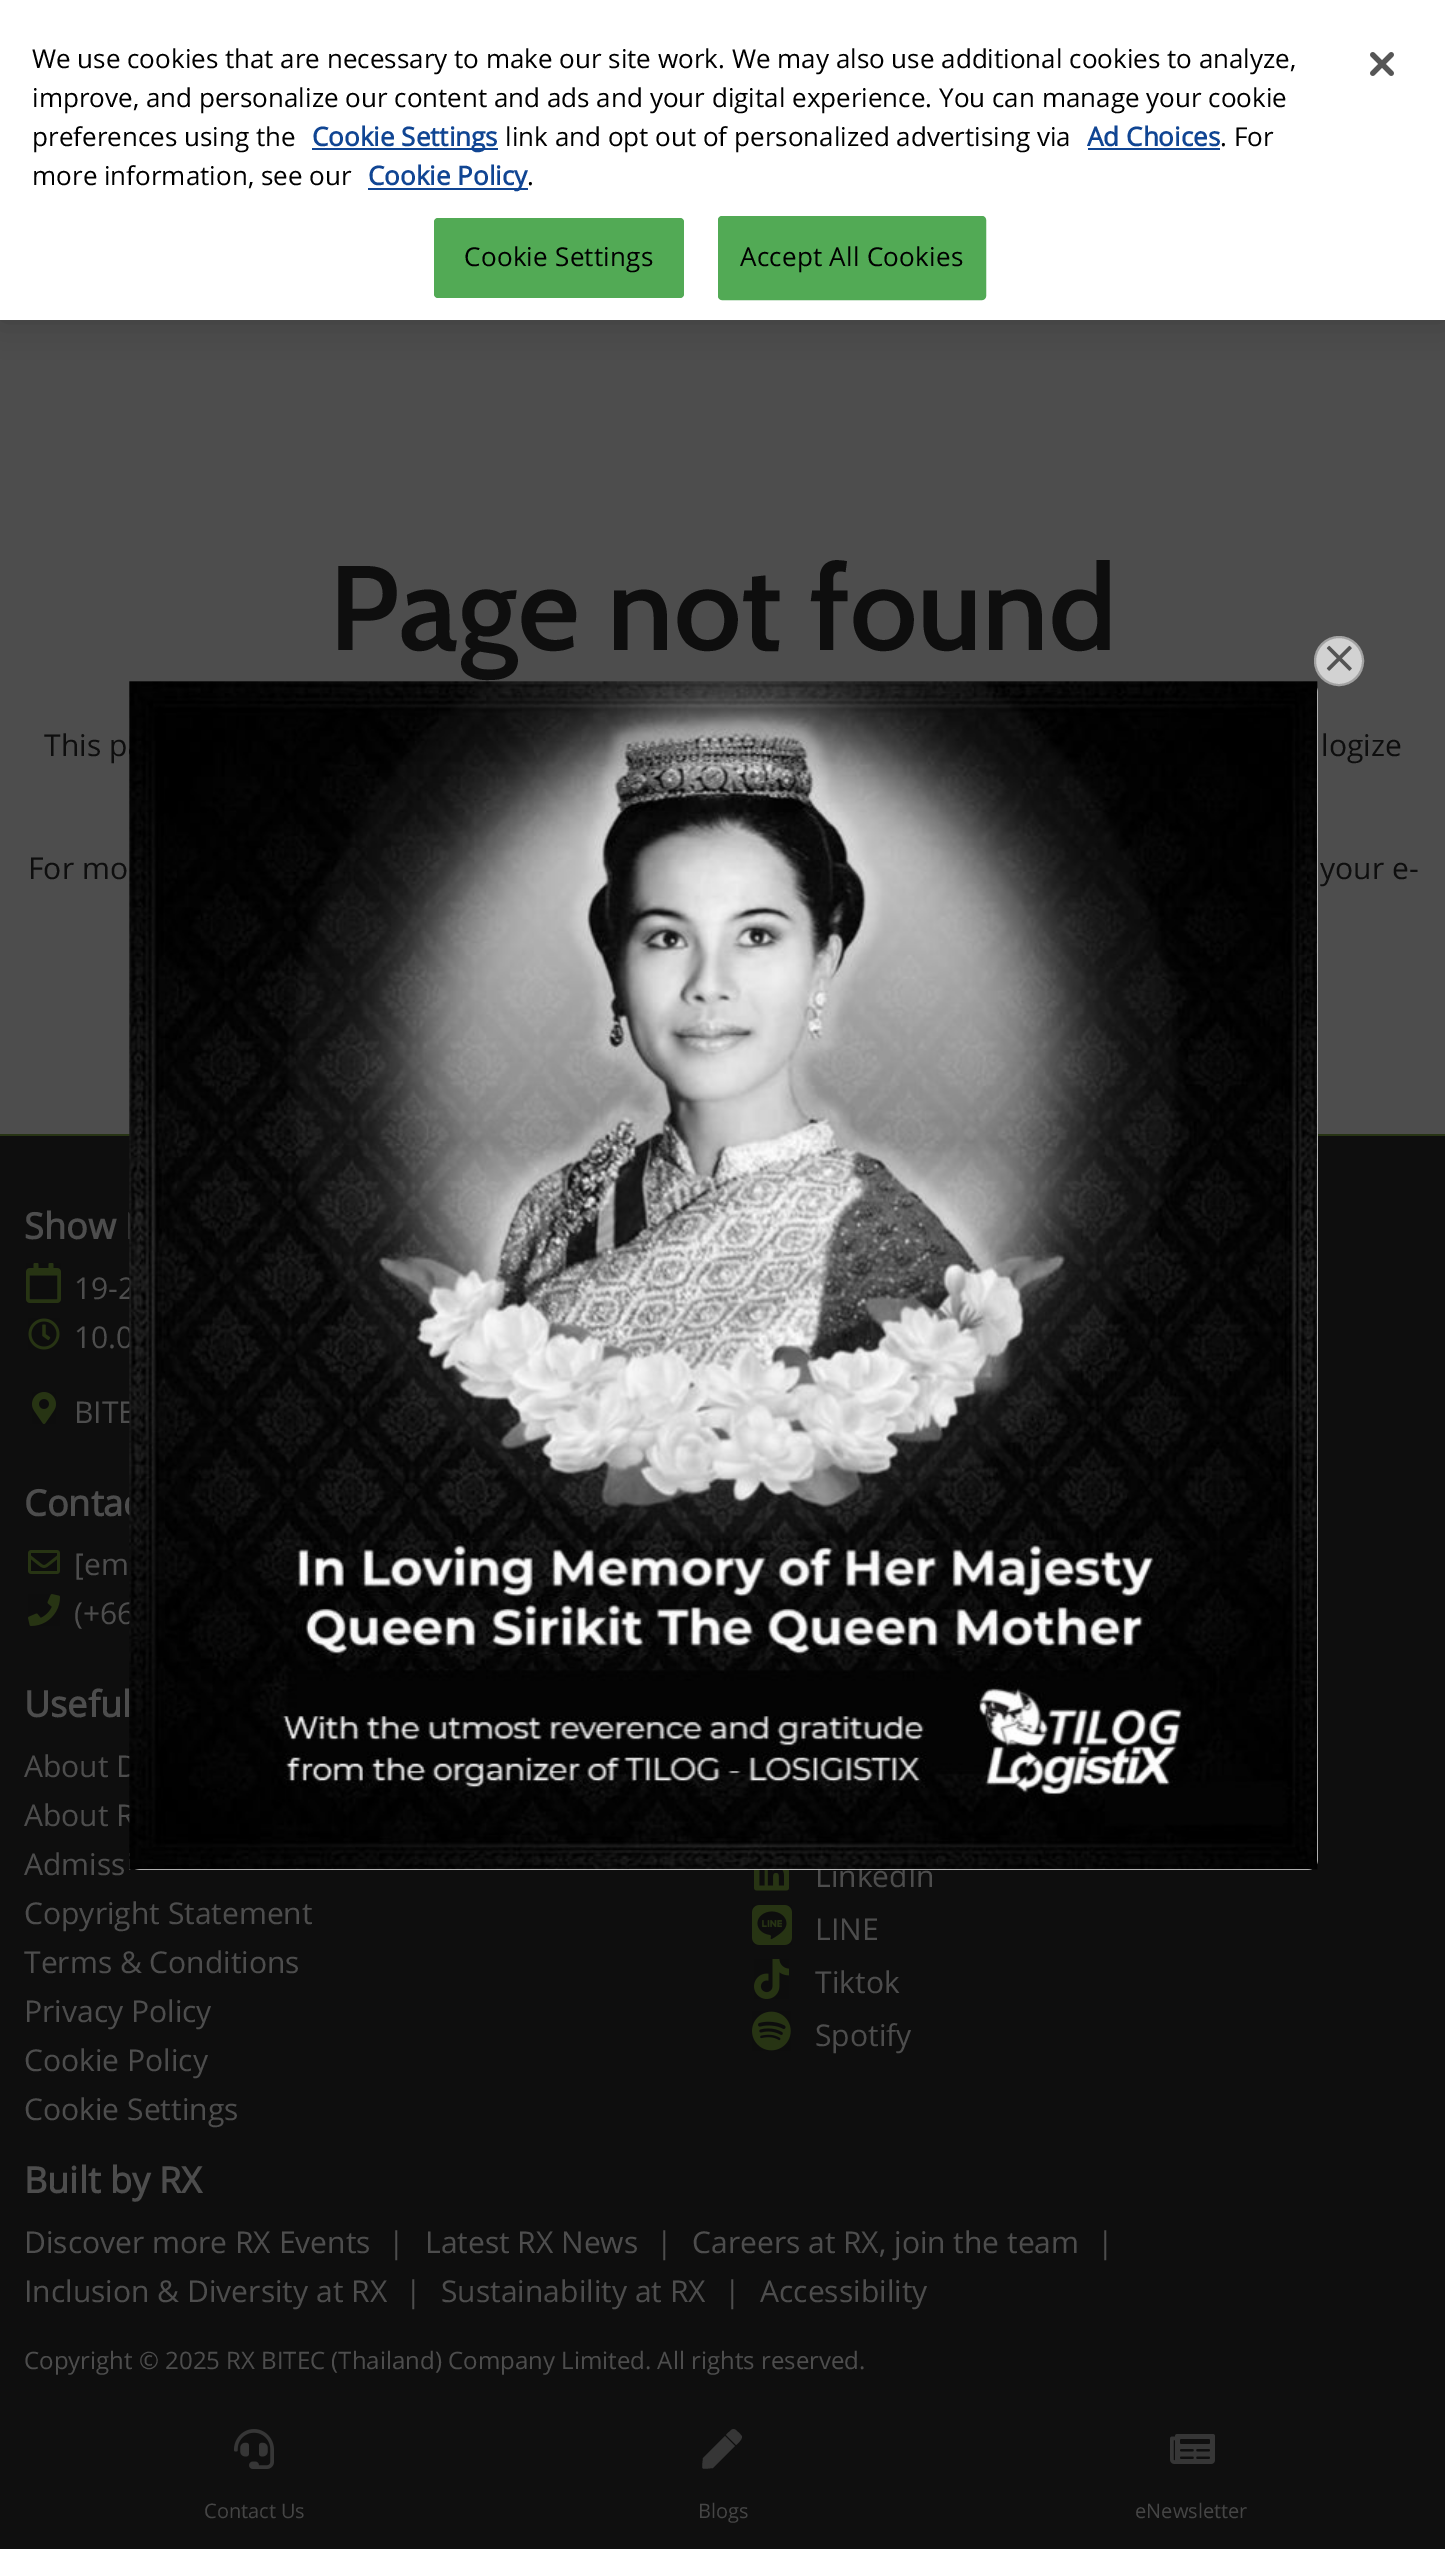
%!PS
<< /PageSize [1445 2549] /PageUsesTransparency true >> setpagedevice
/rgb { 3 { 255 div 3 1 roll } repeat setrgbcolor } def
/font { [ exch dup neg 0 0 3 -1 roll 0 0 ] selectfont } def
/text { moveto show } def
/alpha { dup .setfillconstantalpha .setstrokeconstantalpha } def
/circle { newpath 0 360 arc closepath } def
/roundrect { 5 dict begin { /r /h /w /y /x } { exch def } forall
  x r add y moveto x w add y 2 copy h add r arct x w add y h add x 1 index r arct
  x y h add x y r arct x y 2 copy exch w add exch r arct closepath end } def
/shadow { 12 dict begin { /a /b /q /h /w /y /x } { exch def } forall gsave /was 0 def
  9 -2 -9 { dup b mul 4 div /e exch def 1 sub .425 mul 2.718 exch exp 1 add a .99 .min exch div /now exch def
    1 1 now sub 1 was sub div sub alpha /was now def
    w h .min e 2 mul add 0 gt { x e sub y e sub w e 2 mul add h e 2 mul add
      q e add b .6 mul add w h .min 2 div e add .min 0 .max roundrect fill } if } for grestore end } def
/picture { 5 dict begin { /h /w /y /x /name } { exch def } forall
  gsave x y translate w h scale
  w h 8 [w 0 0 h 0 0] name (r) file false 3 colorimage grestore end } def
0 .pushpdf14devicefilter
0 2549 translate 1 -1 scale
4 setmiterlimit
77 77 77 rgb
0 0 1445 2549 rectfill
0 0 0 rgb
0 0 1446 320 0 18 0.2 shadow
255 255 255 rgb
0 0 1445 320 rectfill
16 69 147 rgb
312 148 186 2 rectfill
1088 148 132 2 rectfill
368 188 160 2 rectfill
82 170 85 rgb
434 218 250 80 4 roundrect fill
719 217 266 82 3 roundrect gsave fill grestore
2 setlinewidth
stroke
(img_01.rgb) 1370 52 24 24 picture
14 14 14 rgb
0 1136 1445 1254 rectfill
39 52 20 rgb
0 1134 1445 2 rectfill
(img_02.rgb) 26 1263 35 40 picture
(img_03.rgb) 28 1318 32 32 picture
(img_04.rgb) 32 1392 24 32 picture
(img_05.rgb) 28 1550 32 24 picture
(img_06.rgb) 28 1594 32 32 picture
(img_07.rgb) 754 1870 35 21 picture
(img_08.rgb) 752 1905 40 40 picture
(img_09.rgb) 754 1959 35 40 picture
(img_10.rgb) 752 2011 39 40 picture
15 15 15 rgb
0 2390 1445 159 rectfill
(img_13.rgb) 234 2429 40 40 picture
54 54 54 rgb
725 2436 moveto 10 10 rlineto -22 22 rlineto -13 1 -11 3 -10 -10 rcurveto closepath 741 2435 moveto -8 -8 -7 -8 -15 0 rcurveto 10 10 rlineto 3 -3 8 -7 5 -10 rcurveto closepath fill
(img_14.rgb) 1170 2434 45 30 picture
/OpenSans-Regular 26 font
0 0 0 rgb
(We use cookies that are necessary to make our site work. We may also use additional cookies to analyze,) 32 68 text
(improve, and personalize our content and ads and your digital experience. You can manage your cookie) 32 107 text
(preferences using the) 32 146 text
/OpenSans-Bold 26 font
16 69 147 rgb
(Cookie Settings) 312 146 text
/OpenSans-Regular 26 font
0 0 0 rgb
(link and opt out of personalized advertising via) 505 146 text
/OpenSans-Bold 26 font
16 69 147 rgb
(Ad Choices) 1087 146 text
/OpenSans-Regular 26 font
0 0 0 rgb
(. For) 1220 146 text
(more information, see our) 32 185 text
/OpenSans-Bold 26 font
16 69 147 rgb
(Cookie Policy) 368 185 text
/OpenSans-Regular 26 font
0 0 0 rgb
(.) 527 185 text
464 266 moveto 0.25 0 (Cookie Settings) ashow
740 266 moveto 0.25 0 (Accept All Cookies) ashow
/Cabin-SemiBold 120 font
14 14 14 rgb
(Page not found) 329 650 text
/OpenSans-Regular 30 font
(This p) 44 756 text
(logize) 1321 756 text
(For mo) 28 879 text
(your e-) 1320 879 text
/OpenSans-Bold 36 font
77 77 77 rgb
(Show I) 24 1239 text
/OpenSans-Regular 30 font
(19-2) 74 1299 text
(10.0) 74 1348 text
(BITE) 74 1423 text
/OpenSans-Bold 36 font
(Contac) 24 1516 text
/OpenSans-Regular 30 font
([em) 74 1575 text
(\(+66) 74 1624 text
/OpenSans-Bold 36 font
(Useful) 24 1717 text
/OpenSans-Regular 30 font
(About D) 24 1777 text
(About R) 24 1826 text
(Admiss) 24 1875 text
(Copyright Statement) 24 1924 text
(Terms & Conditions) 24 1973 text
(Privacy Policy) 24 2022 text
(Cookie Policy) 24 2071 text
(Cookie Settings) 24 2120 text
(LinkedIn) 815 1887 text
(LINE) 815 1940 text
(Tiktok) 815 1993 text
(Spotify) 815 2046 text
/OpenSans-Bold 36 font
(Built by RX) 24 2193 text
/OpenSans-Regular 30 font
(Discover more RX Events) 24 2253 text
(|) 388 2253 text
(Latest RX News) 425 2253 text
(|) 656 2253 text
(Careers at RX, join the team) 692 2253 text
(|) 1097 2253 text
(Inclusion & Diversity at RX) 24 2302 text
(|) 405 2302 text
(Sustainability at RX) 441 2302 text
(|) 724 2302 text
(Accessibility) 760 2302 text
/OpenSans-Regular 24 font
(Copyright © 2025 RX BITEC \(Thailand\) Company Limited. All rights reserved.) 24 2369 text
255 255 255 rgb
130 682 1188 1188 10 roundrect fill
(img_12.rgb) 129 681 1189 1189 picture
210 210 210 rgb
1339 661 24 circle gsave fill grestore
162 162 162 rgb
stroke
(img_11.rgb) 1326 645 26 26 picture
/OpenSans-Regular 20 font
69 69 69 rgb
(Contact Us) 204 2518 text
(Blogs) 698 2518 text
(eNewsletter) 1135 2518 text
.poppdf14devicefilter showpage
